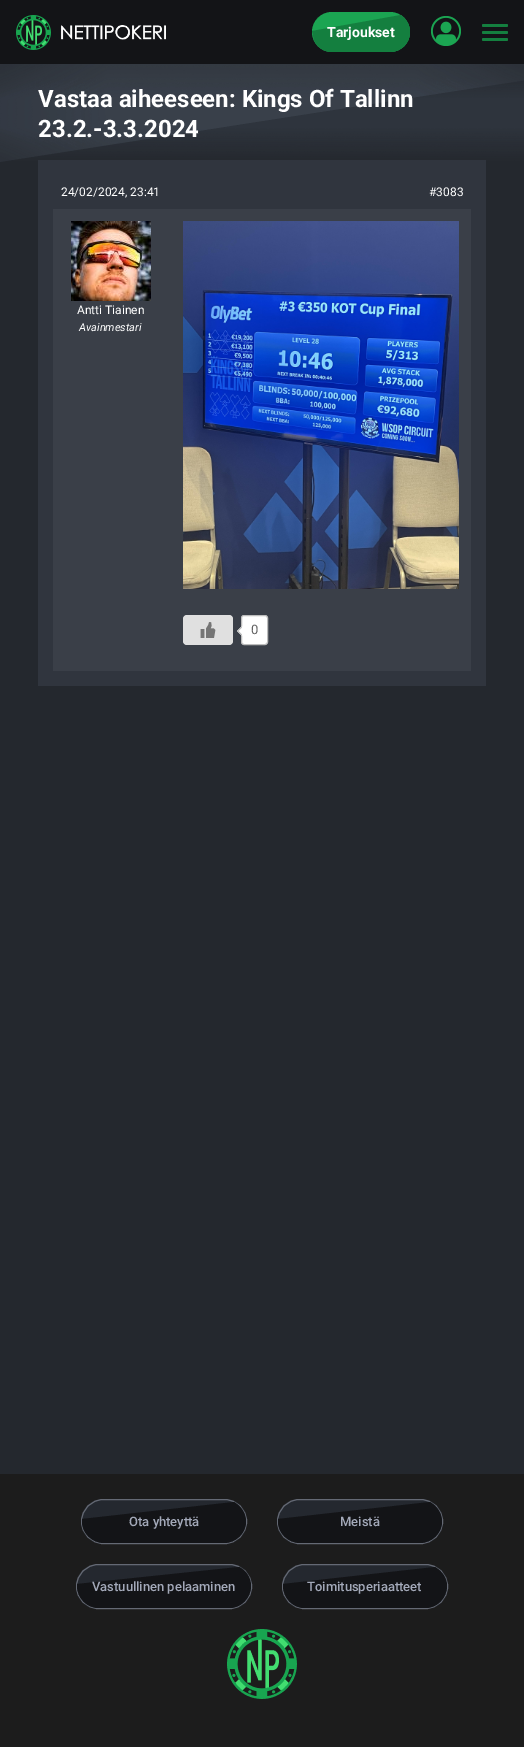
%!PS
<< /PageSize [524 1747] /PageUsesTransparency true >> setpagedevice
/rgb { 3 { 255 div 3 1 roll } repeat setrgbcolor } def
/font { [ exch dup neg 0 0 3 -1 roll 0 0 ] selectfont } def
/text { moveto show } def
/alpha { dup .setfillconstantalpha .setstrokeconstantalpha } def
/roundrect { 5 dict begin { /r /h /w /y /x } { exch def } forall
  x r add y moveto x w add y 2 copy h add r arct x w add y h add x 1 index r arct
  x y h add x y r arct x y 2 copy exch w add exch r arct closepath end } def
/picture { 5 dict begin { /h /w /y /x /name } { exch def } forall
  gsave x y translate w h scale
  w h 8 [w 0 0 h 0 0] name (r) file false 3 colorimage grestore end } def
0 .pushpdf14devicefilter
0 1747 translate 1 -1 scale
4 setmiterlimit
36 40 46 rgb
0 0 524 1747 rectfill
19 20 23 rgb
0 0 524 64 rectfill
(img_01.rgb) 16 15 35 35 picture
(img_02.rgb) 61 25 105 15 picture
27 165 82 rgb
312 12 98 40 20 roundrect fill
20 127 63 rgb
312 31 moveto 89 -16 rlineto 5 4 9 10 9 17 rcurveto 0 11 -9 20 -20 20 rcurveto -58 0 rlineto -8 0 -15 -5 -18 -12 rcurveto closepath fill
(img_03.rgb) 431 16 30 30 picture
482 24 26 3 1.5 roundrect fill
482 31 26 3 1.5 roundrect fill
482 38 26 3 1.5 roundrect fill
(img_04.rgb) 0 64 524 98 picture
48 53 62 rgb
38 160 448 526 rectfill
58 63 72 rgb
53 209 418 462 rectfill
(img_05.rgb) 71 221 80 80 picture
(img_06.rgb) 183 221 276 368 picture
224 224 224 rgb
183 615 50 30 4 roundrect fill
(img_07.rgb) 200 622 16 16 picture
255 255 255 rgb
241.5 615.5 26 29 2.5 roundrect gsave fill grestore
189 189 189 rgb
stroke
255 255 255 rgb
242 626 moveto 5 5 rlineto -5 5 rlineto -5 -5 rlineto closepath fill
189 189 189 rgb
242 636 moveto -5 -5 rlineto 1.5 0 rlineto 3.5 3.5 rlineto closepath 237 631 moveto 5 -5 rlineto 0 1.5 rlineto -3.5 3.5 rlineto closepath fill
28 28 28 rgb
0 1474 524 273 rectfill
36 40 47 rgb
81 1499 166 45 22.5 roundrect fill
0.5 alpha
163 169 185 rgb
81.5 1499.5 165 44 22 roundrect stroke
1 alpha
19 20 23 rgb
234 1502 moveto 7 4 12 11 12 20 rcurveto 0 11 -10 21 -22 21 rcurveto -120 0 rlineto -12 0 -22 -10 -22 -21 rcurveto 0 -3 rlineto closepath fill
36 40 47 rgb
277 1499 166 45 22.5 roundrect fill
0.5 alpha
163 169 185 rgb
277.5 1499.5 165 44 22 roundrect stroke
1 alpha
19 20 23 rgb
430 1502 moveto 7 4 12 11 12 20 rcurveto 0 11 -10 21 -22 21 rcurveto -120 0 rlineto -12 0 -22 -10 -22 -21 rcurveto 0 -3 rlineto closepath fill
36 40 47 rgb
76 1564 176 45 22.5 roundrect fill
0.5 alpha
163 169 185 rgb
76.5 1564.5 175 44 22 roundrect stroke
1 alpha
19 20 23 rgb
239 1567 moveto 7 3 12 11 12 19 rcurveto 0 12 -10 22 -21 22 rcurveto -132 0 rlineto -11 0 -21 -10 -21 -22 rcurveto 0 -2 rlineto closepath fill
36 40 47 rgb
282 1564 166 45 22.5 roundrect fill
0.5 alpha
163 169 185 rgb
282.5 1564.5 165 44 22 roundrect stroke
1 alpha
19 20 23 rgb
435 1567 moveto 7 4 12 11 12 19 rcurveto 0 12 -10 22 -21 22 rcurveto -122 0 rlineto -11 0 -21 -10 -21 -22 rcurveto 0 -2 rlineto closepath fill
(img_08.rgb) 227 1629 70 70 picture
/Roboto-Bold 14 font
255 255 255 rgb
(Tarjoukset) 327 37 text
/Roboto-Bold 24 font
(Vastaa aiheeseen: Kings Of Tallinn) 38 107 text
(23.2.-3.3.2024) 38 137 text
/Roboto-Regular 12 font
(24/02/2024, 23:41) 61 196 text
(#3083) 429 196 text
(Antti Tiainen) 77 314 text
/Roboto-Italic 11 font
(Avainmestari) 79 331 text
/Roboto-Regular 13 font
97 97 97 rgb
(0) 251 634 text
/Roboto-Medium 13 font
163 169 185 rgb
(Ota yhteyttä) 129 1526 text
(Meistä) 340 1526 text
(Vastuullinen pelaaminen) 92 1591 text
(Toimitusperiaatteet) 307 1591 text
.poppdf14devicefilter showpage
